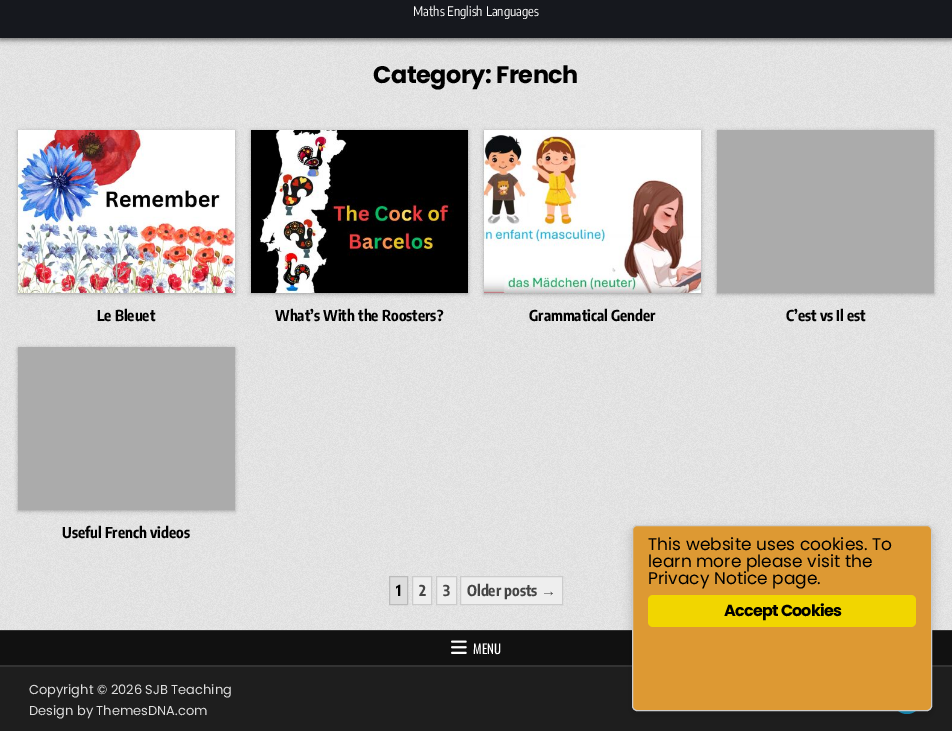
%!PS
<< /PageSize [952 731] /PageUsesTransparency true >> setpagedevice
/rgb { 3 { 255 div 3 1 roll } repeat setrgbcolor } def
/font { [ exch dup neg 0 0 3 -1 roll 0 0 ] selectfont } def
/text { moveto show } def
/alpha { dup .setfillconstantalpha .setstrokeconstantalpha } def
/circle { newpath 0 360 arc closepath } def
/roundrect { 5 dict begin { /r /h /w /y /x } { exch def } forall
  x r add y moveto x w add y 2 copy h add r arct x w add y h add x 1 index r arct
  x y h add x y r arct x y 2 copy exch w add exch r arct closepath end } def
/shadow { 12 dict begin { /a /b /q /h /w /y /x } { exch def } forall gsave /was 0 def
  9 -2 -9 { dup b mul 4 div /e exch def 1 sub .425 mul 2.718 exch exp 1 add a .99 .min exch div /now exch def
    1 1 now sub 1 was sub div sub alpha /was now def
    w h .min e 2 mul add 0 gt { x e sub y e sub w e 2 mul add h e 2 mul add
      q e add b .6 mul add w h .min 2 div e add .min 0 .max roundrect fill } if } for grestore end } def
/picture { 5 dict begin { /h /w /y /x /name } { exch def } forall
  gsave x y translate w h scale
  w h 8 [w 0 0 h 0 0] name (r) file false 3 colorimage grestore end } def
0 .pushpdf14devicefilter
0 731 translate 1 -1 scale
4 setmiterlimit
255 255 255 rgb
0 0 952 731 rectfill
(img_01.rgb) 0 38 952 592 picture
0 0 0 rgb
0 -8 952 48 0 2.5 0.5 shadow
22 24 30 rgb
0 0 952 38 rectfill
0 0 0 rgb
18 131 217 163 0 2 0.3 shadow
(img_02.rgb) 18 130 217 163 picture
251 131 217 163 0 2 0.3 shadow
(img_03.rgb) 251 130 217 163 picture
484 131 217 163 0 2 0.3 shadow
(img_04.rgb) 484 130 217 163 picture
717 131 217 163 0 2 0.3 shadow
171 171 171 rgb
717 130 217 163 rectfill
0 0 0 rgb
18 348 217 163 0 2 0.3 shadow
171 171 171 rgb
18 347 217 163 rectfill
221 221 221 rgb
389.5 576.5 moveto 18 0 rlineto 0 28 rlineto -18 0 rlineto closepath gsave fill grestore
187 187 187 rgb
stroke
238 238 238 rgb
412.5 576.5 moveto 19 0 rlineto 0 28 rlineto -19 0 rlineto closepath gsave fill grestore
204 204 204 rgb
stroke
238 238 238 rgb
436.5 576.5 moveto 20 0 rlineto 0 28 rlineto -20 0 rlineto closepath gsave fill grestore
204 204 204 rgb
stroke
238 238 238 rgb
460.5 576.5 moveto 102 0 rlineto 0 28 rlineto -102 0 rlineto closepath gsave fill grestore
204 204 204 rgb
stroke
17 17 17 rgb
0 631 952 34 rectfill
51 51 51 rgb
0 630 952 1 rectfill
0 665 952 2 rectfill
30 30 30 rgb
0 667 952 64 rectfill
23 150 198 rgb
907 700 14 circle fill
0 0 0 rgb
632 530 300 186 5 5 0.2 shadow
221 153 51 rgb
632.5 525.5 299 185 4.5 roundrect gsave fill grestore
204 204 204 rgb
stroke
241 214 0 rgb
648 595 268 32 5 roundrect fill
(img_05.rgb) 451 640 16 14 picture
/EncodeSansCondensed-Regular 13 font
255 255 255 rgb
(Maths English Languages) 413 16 text
/Poppins-Bold 24 font
0 0 0 rgb
373 83 moveto -0.5 0 (Category: French) ashow
/EncodeSansCondensed-Bold 15 font
(Le Bleuet) 97 321 text
(What’s With the Roosters?) 275 321 text
(Grammatical Gender) 529 321 text
(C’est vs Il est) 786 321 text
(Useful French videos) 62 538 text
(1) 396 596 text
68 68 68 rgb
(2) 419 596 text
(3) 443 596 text
(Older posts) 467 596 text
/LiberationSans-Bold 15 font
(→) 541 596 text
/Poppins-Regular 17 font
0 0 0 rgb
(This website uses cookies. To) 648 550 text
(learn more please visit the) 648 567 text
(Privacy Notice page.) 648 584 text
/Poppins-Bold 16 font
724 616 moveto -0.75 0 (Accept Cookies) ashow
/Oswald-Regular 13 font
255 255 255 rgb
(MENU) 473 654 text
/Poppins-Regular 13 font
221 221 221 rgb
(Copyright © 2026 SJB Teaching) 29 694 text
(Design by ThemesDNA.com) 29 715 text
.poppdf14devicefilter showpage
